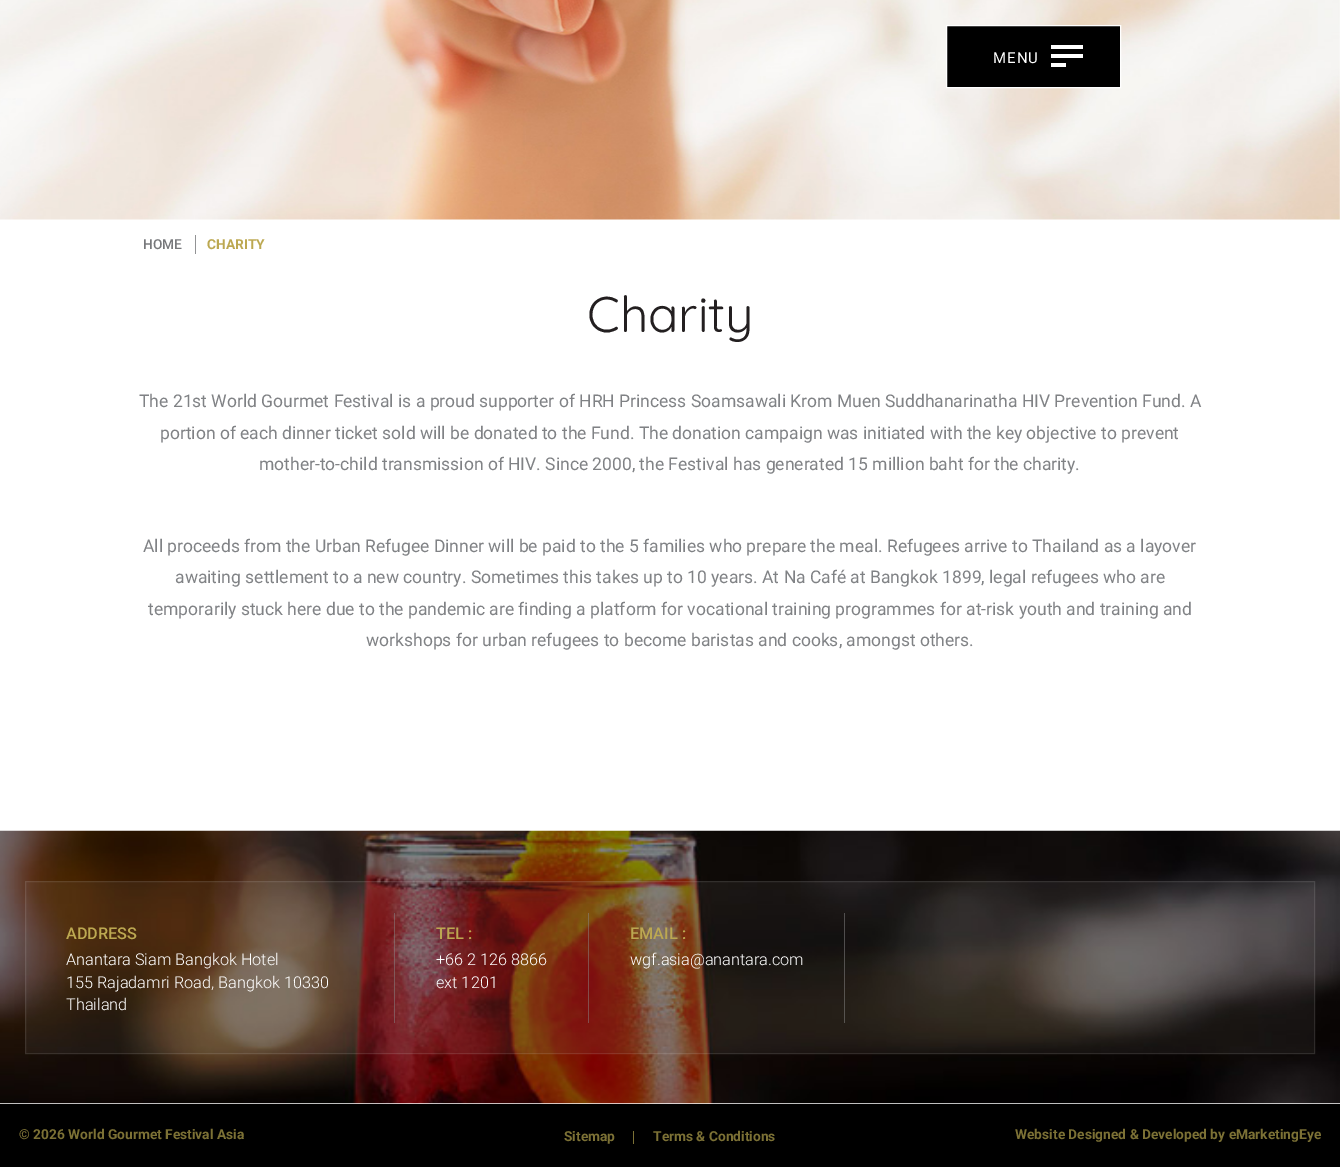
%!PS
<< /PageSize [1340 1167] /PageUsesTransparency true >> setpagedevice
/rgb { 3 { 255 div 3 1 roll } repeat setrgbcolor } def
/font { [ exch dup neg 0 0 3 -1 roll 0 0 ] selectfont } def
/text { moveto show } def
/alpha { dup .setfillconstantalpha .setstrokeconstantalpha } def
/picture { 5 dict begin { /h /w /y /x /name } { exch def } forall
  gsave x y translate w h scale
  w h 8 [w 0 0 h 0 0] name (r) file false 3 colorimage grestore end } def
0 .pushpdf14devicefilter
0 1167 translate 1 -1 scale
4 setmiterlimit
255 255 255 rgb
0 0 1340 1167 rectfill
(img_01.rgb) 0 0 1340 220 picture
0 0 0 rgb
946.5 25.5 moveto 174 0 rlineto 0 62 rlineto -174 0 rlineto closepath gsave fill grestore
255 255 255 rgb
stroke
1051 45 32 4 rectfill
1051 54 32 4 rectfill
1051 63 15 4 rectfill
146 147 149 rgb
195 235 1 19 rectfill
(img_02.rgb) 0 830 1340 274 picture
0.1 alpha
137 136 136 rgb
25 881 1290 173 rectfill
255 255 255 rgb
25.5 881.5 1289 172 rectstroke
0.5 alpha
137 136 136 rgb
394 913 1 110 rectfill
588 913 1 110 rectfill
844 913 1 110 rectfill
1 alpha
0 0 0 rgb
0 1104 1340 63 rectfill
124 113 53 rgb
633 1131 1 13 rectfill
/Roboto-Regular 15 font
255 255 255 rgb
993 63 moveto 1 0 (MENU) ashow
/Roboto-Medium 13.75 font
119 120 123 rgb
(HOME) 143 249 text
/Roboto-Bold 13.75 font
188 168 81 rgb
(CHARITY) 207 249 text
/Quicksand-Regular 50 font
35 31 32 rgb
(Charity) 587 332 text
/Roboto-Regular 17.5 font
128 130 133 rgb
(The 21st World Gourmet Festival is a proud supporter of HRH Princess Soamsawali Krom Muen Suddhanarinatha HIV Prevention Fund. A) 139 407 text
(portion of each dinner ticket sold will be donated to the Fund. The donation campaign was initiated with the key objective to prevent) 160 439 text
(mother-to-child transmission of HIV. Since 2000, the Festival has generated 15 million baht for the charity.) 259 470 text
(All proceeds from the Urban Refugee Dinner will be paid to the 5 families who prepare the meal. Refugees arrive to Thailand as a layover) 143 552 text
(awaiting settlement to a new country. Sometimes this takes up to 10 years. At Na Café at Bangkok 1899, legal refugees who are) 175 583 text
(temporarily stuck here due to the pandemic are finding a platform for vocational training programmes for at-risk youth and training and) 148 615 text
(workshops for urban refugees to become baristas and cooks, amongst others.) 366 646 text
/Roboto-Medium 16.25 font
188 168 81 rgb
(ADDRESS) 66 939 text
/Roboto-Light 16.25 font
255 255 255 rgb
(Anantara Siam Bangkok Hotel) 66 965 text
(155 Rajadamri Road, Bangkok 10330) 66 988 text
(Thailand) 66 1010 text
/Roboto-Medium 16.25 font
188 168 81 rgb
(TEL :) 436 939 text
/Roboto-Light 16.25 font
255 255 255 rgb
(+66 2 126 8866) 436 965 text
(ext 1201) 436 988 text
/Roboto-Medium 16.25 font
188 168 81 rgb
(EMAIL :) 630 939 text
/Roboto-Light 16.25 font
255 255 255 rgb
(wgf.asia@anantara.com) 630 965 text
/Roboto-Bold 13.75 font
124 113 53 rgb
(© 2026 World Gourmet Festival Asia) 19 1139 text
(Sitemap) 564 1141 text
(Terms & Conditions) 653 1141 text
(Website Designed & Developed by eMarketingEye) 1015 1139 text
.poppdf14devicefilter showpage
